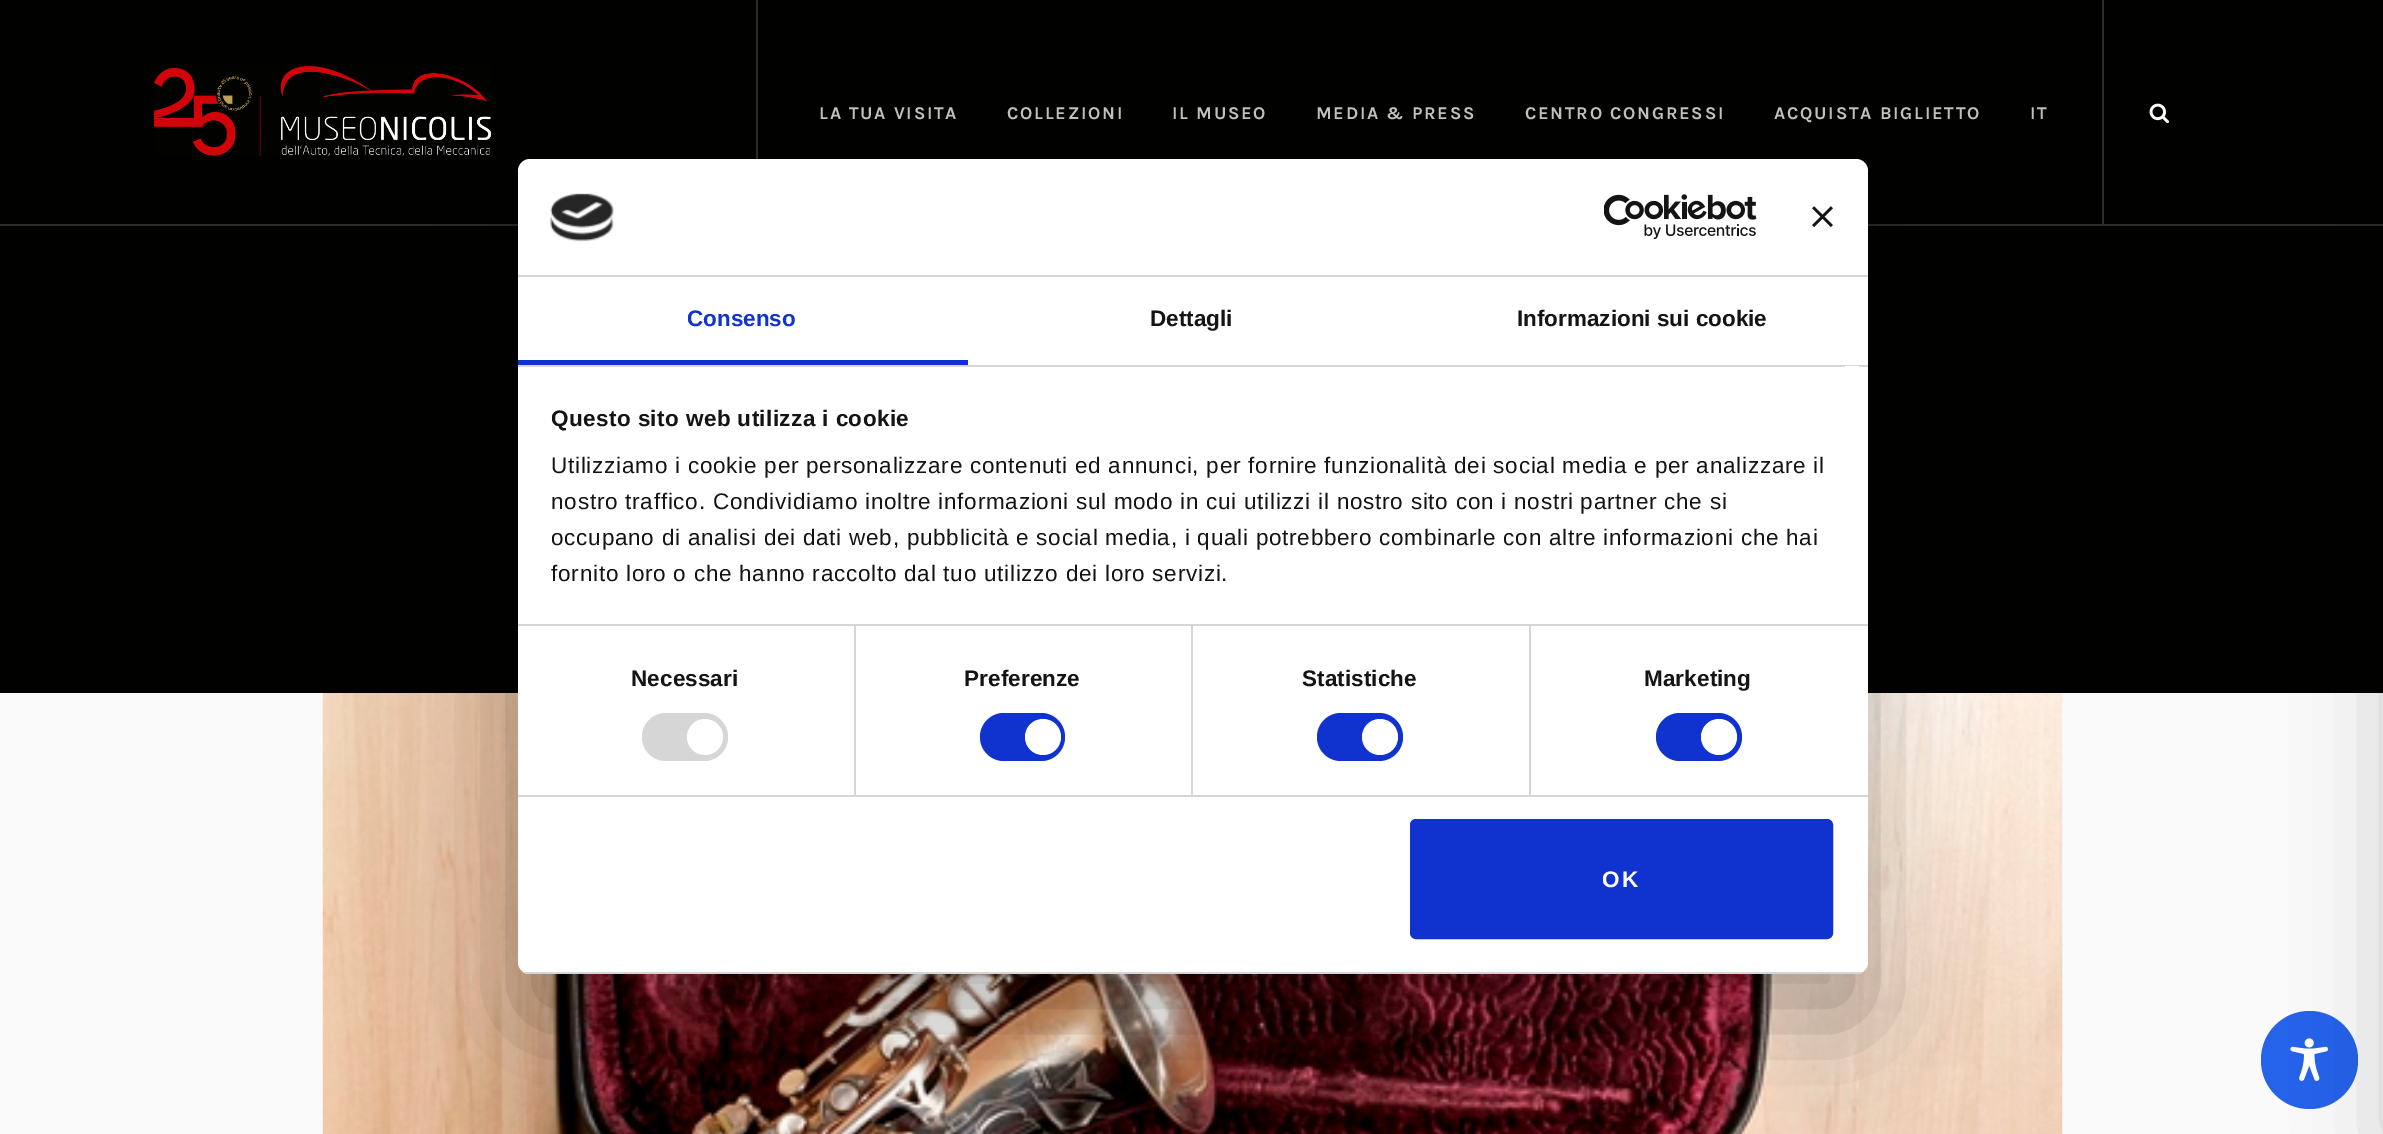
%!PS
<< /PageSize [2383 1134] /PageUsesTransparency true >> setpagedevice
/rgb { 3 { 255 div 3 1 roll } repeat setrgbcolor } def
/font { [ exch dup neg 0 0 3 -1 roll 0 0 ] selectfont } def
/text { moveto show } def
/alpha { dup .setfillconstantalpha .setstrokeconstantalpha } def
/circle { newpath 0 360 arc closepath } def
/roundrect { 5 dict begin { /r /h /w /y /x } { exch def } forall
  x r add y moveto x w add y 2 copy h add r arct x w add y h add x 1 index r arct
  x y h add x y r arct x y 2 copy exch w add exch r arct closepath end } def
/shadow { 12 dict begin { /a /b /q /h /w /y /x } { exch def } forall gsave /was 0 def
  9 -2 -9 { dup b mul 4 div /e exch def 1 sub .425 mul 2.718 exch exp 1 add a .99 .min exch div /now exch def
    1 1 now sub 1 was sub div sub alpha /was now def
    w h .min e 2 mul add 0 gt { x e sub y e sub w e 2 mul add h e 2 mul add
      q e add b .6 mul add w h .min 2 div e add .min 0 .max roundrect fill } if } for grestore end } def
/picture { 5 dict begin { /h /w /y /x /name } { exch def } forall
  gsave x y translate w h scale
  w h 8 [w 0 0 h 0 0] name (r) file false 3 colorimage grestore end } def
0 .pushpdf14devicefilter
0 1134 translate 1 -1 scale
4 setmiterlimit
250 250 250 rgb
0 0 2383 1134 rectfill
1 2 0 rgb
0 0 2383 693 rectfill
(img_01.rgb) 322 693 1741 441 picture
44 45 43 rgb
0 224 2383 2 rectfill
(img_02.rgb) 154 66 337 90 picture
756 0 2 159 rectfill
2102 0 2 224 rectfill
(img_03.rgb) 2149 103 20 21 picture
37 99 235 rgb
2261 1011 97 98 48.5 roundrect fill
(img_07.rgb) 2290 1038 39 43 picture
0 0 0 rgb
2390 15 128 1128 0 45 0.2 shadow
518 207 1350 815 12 51 0.3 shadow
255 255 255 rgb
518 159 1350 815 12 roundrect fill
214 214 214 rgb
518 275 1350 2 rectfill
(img_04.rgb) 550 193 64 49 picture
(img_05.rgb) 1604 194 153 45 picture
(img_06.rgb) 1812 206 21 21 picture
518 365 1350 2 rectfill
16 50 207 rgb
518 360 450 5 rectfill
214 214 214 rgb
518 624 1350 2 rectfill
255 255 255 rgb
1845 366 14 1 rectfill
214 214 214 rgb
518 795 1350 2 rectfill
854 626 2 169 rectfill
642 713 86 48 24 roundrect fill
255 255 255 rgb
705 737 18 circle fill
214 214 214 rgb
1191 626 2 169 rectfill
16 50 207 rgb
980 713 85 48 24 roundrect fill
255 255 255 rgb
1043 737 18 circle fill
214 214 214 rgb
1529 626 2 169 rectfill
16 50 207 rgb
1317 713 86 48 24 roundrect fill
255 255 255 rgb
1380 737 18 circle fill
16 50 207 rgb
1656 713 86 48 24 roundrect fill
255 255 255 rgb
1719 737 18 circle fill
gsave
518 159 1350 815 12 roundrect clip newpath
214 214 214 rgb
518 972 1350 2 rectfill
grestore
16 50 207 rgb
1411.5 820.5 420 117 4.5 roundrect gsave fill grestore
3 setlinewidth
stroke
/Karla-Bold 18 font
192 192 191 rgb
819 119 moveto 1.75 0 (LA TUA VISITA) ashow
1007 119 moveto 1.75 0 (COLLEZIONI) ashow
1172 119 moveto 1.75 0 (IL MUSEO) ashow
1316 119 moveto 1.75 0 (MEDIA & PRESS) ashow
1525 119 moveto 1.75 0 (CENTRO CONGRESSI) ashow
1774 119 moveto 1.75 0 (ACQUISTA BIGLIETTO) ashow
2030 119 moveto 1.75 0 (IT) ashow
/LiberationSans-Bold 22.5 font
16 50 207 rgb
(Consenso) 687 326 text
20 20 20 rgb
(Dettagli) 1150 326 text
(Informazioni sui cookie) 1517 326 text
551 426 moveto 0.4 0 (Questo sito web utilizza i cookie) ashow
/LiberationSans-Regular 22.5 font
551 473 moveto 0.75 0 (Utilizziamo i cookie per personalizzare contenuti ed annunci, per fornire funzionalità dei social media e per analizzare il) ashow
551 509 moveto 0.75 0 (nostro traffico. Condividiamo inoltre informazioni sul modo in cui utilizzi il nostro sito con i nostri partner che si) ashow
551 545 moveto 0.75 0 (occupano di analisi dei dati web, pubblicità e social media, i quali potrebbero combinarle con altre informazioni che hai) ashow
551 581 moveto 0.75 0 (fornito loro o che hanno raccolto dal tuo utilizzo dei loro servizi.) ashow
/LiberationSans-Bold 22.5 font
631 686 moveto 0.1 0 (Necessari) ashow
964 686 moveto 0.1 0 (Preferenze) ashow
1302 686 moveto 0.1 0 (Statistiche) ashow
1644 686 moveto 0.1 0 (Marketing) ashow
255 255 255 rgb
1602 887 moveto 2 0 (OK) ashow
.poppdf14devicefilter showpage
